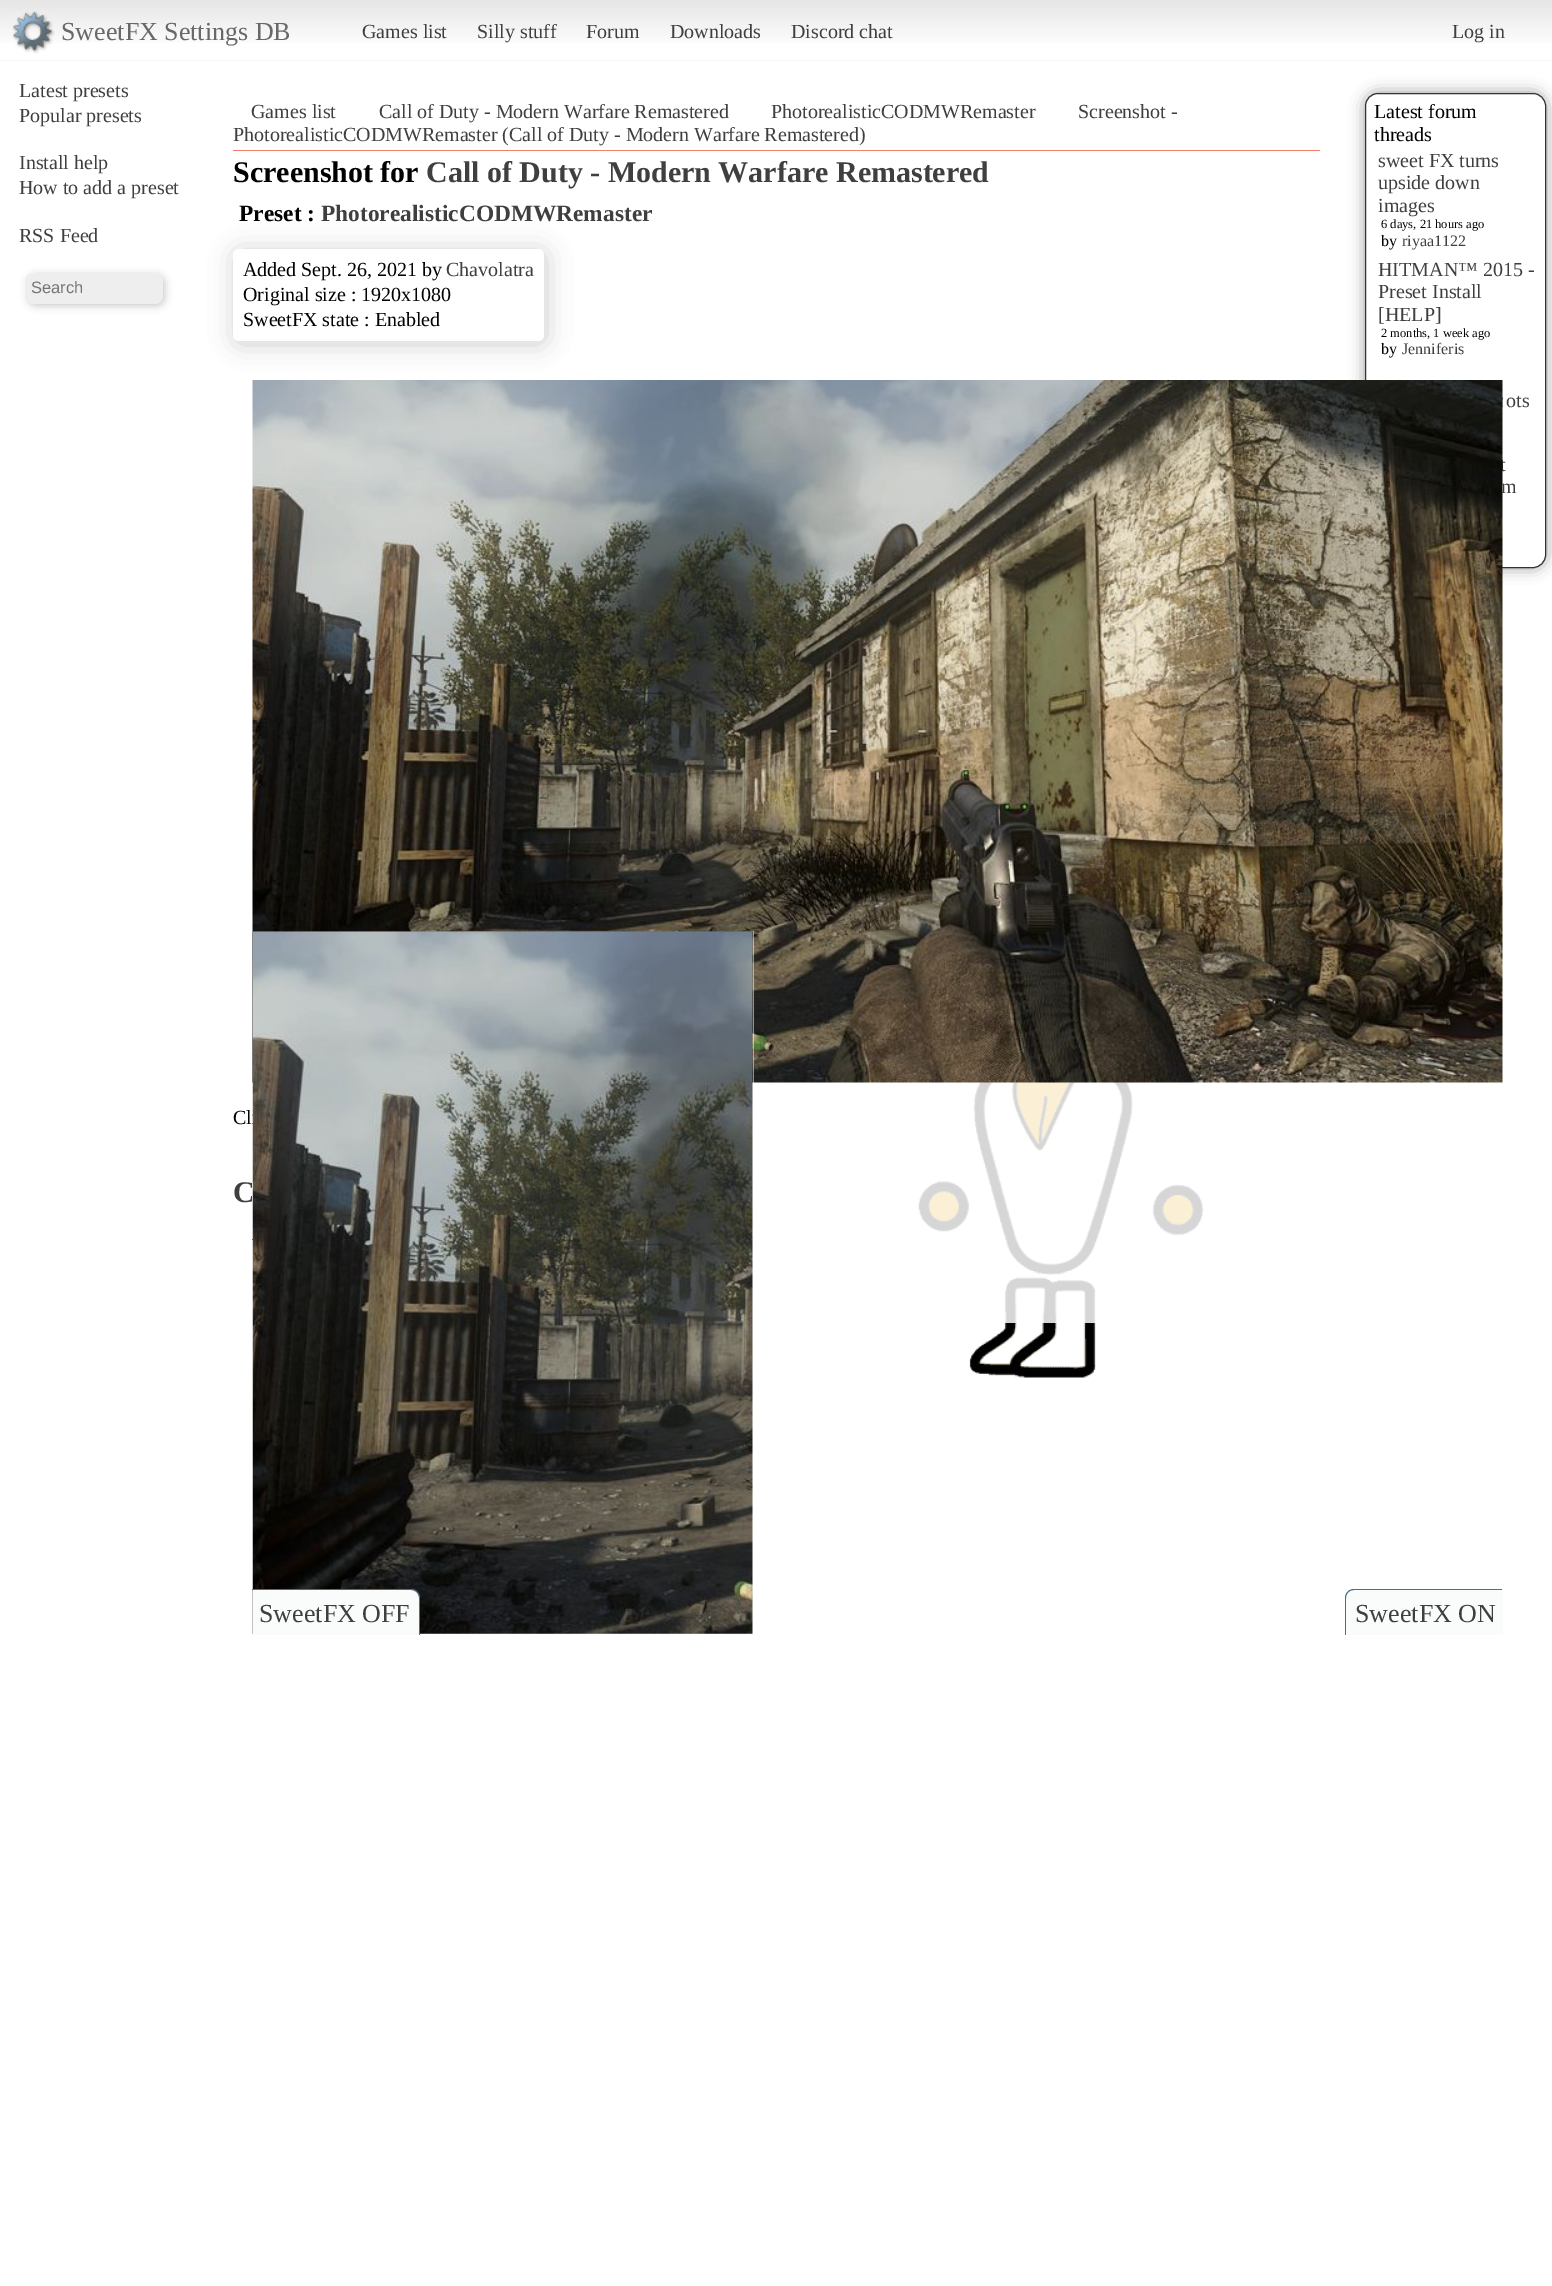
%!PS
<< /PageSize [1552 2286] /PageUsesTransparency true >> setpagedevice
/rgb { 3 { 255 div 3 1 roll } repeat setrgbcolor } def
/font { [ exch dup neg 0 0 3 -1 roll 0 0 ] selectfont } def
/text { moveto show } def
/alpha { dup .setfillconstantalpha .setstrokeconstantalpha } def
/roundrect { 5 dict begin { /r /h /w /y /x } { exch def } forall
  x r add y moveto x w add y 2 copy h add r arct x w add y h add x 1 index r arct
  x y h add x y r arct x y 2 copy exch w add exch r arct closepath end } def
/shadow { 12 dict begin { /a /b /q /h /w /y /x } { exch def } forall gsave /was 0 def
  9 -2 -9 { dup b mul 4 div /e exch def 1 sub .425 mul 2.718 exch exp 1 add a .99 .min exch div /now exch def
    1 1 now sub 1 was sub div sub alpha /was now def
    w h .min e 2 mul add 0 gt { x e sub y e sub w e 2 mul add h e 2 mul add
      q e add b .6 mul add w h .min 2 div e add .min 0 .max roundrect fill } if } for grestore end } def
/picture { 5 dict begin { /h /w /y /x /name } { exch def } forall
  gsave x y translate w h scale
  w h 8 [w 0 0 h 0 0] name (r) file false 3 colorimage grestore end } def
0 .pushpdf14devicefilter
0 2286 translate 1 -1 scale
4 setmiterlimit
255 255 255 rgb
0 0 1552 2286 rectfill
(img_01.rgb) 918 1082 286 296 picture
gsave 0 0 moveto 1552 0 rlineto 0 43 rlineto -1552 0 rlineto closepath clip newpath
<< /ShadingType 2 /ColorSpace /DeviceRGB /Coords [776 0 776 60] /Extend [true true] /Function << /FunctionType 3 /Domain [0 1] /Functions [<< /FunctionType 2 /Domain [0 1] /C0 [0.902 0.902 0.902] /C1 [1 1 1] /N 1 >> << /FunctionType 2 /Domain [0 1] /C0 [1 1 1] /C1 [1 1 1] /N 1 >>] /Bounds [0.8] /Encode [0 1 0 1] >> >> shfill grestore
245 245 245 rgb
0 60 1552 1 rectfill
(img_02.rgb) 12 11 43 43 picture
50 50 50 rgb
28 275 137 31 8 4 0.25 shadow
238 238 238 rgb
25 273 138 31 8 roundrect fill
0.84 alpha
255 255 255 rgb
918 1082 286 241 rectfill
1 alpha
240 128 106 rgb
233 150 1087 1 rectfill
182 182 182 rgb
235 251 311 93 6 12.5 0.68 shadow
255 255 255 rgb
233 249 311 92 6 roundrect fill
250 252 252 rgb
1354 1590 moveto 149 0 rlineto 0 45 rlineto -157 0 rlineto 0 -37 rlineto 0 -4.5 3.5 -8 8 -8 rcurveto closepath fill
76 112 131 rgb
1354 1589 moveto 148 0 rlineto 0 46 rlineto -157 0 rlineto 0 -37 rlineto 0 -5 4 -9 9 -9 rcurveto closepath 1354 1590 moveto 148 0 rlineto 0 45 rlineto -156 0 rlineto 0 -37 rlineto 0 -5 4 -8 8 -8 rcurveto closepath eofill
gsave
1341 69 moveto 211 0 rlineto 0 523 rlineto -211 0 rlineto closepath 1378 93 moveto 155 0 rlineto 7 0 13 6 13 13 rcurveto 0 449 rlineto 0 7 -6 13 -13 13 rcurveto -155 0 rlineto -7 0 -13 -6 -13 -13 rcurveto 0 -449 rlineto 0 -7 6 -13 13 -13 rcurveto closepath eoclip newpath
153 153 153 rgb
1365 93 181 475 13 7.5 1 shadow
grestore
51 51 51 rgb
1365.5 93.5 180 474 12.5 roundrect stroke
/LiberationSerif-Regular 26 font
104 104 104 rgb
(SweetFX Settings DB) 61 40 text
/LiberationSerif-Regular 20 font
63 63 63 rgb
(Games list) 362 38 text
(Silly stuff) 477 38 text
(Forum) 586 38 text
(Downloads) 670 38 text
(Discord chat) 791 38 text
(Log in) 1452 38 text
(Latest presets) 19 97 text
(Popular presets) 19 122 text
(Install help) 19 169 text
(How to add a preset) 19 194 text
(RSS Feed) 19 242 text
/LiberationSans-Regular 16.5 font
117 117 117 rgb
(Search) 31 293 text
/LiberationSerif-Regular 20 font
63 63 63 rgb
(Games list) 251 118 text
(Call of Duty - Modern Warfare Remastered) 379 118 text
(PhotorealisticCODMWRemaster) 771 118 text
(Screenshot -) 1078 118 text
(PhotorealisticCODMWRemaster \(Call of Duty - Modern Warfare Remastered\)) 233 141 text
/LiberationSerif-Bold 30 font
0 0 0 rgb
(Screenshot for) 233 182 text
63 63 63 rgb
(Call of Duty - Modern Warfare Remastered) 426 182 text
/LiberationSerif-Bold 23.4 font
0 0 0 rgb
(Preset :) 239 221 text
63 63 63 rgb
(PhotorealisticCODMWRemaster) 321 221 text
/LiberationSerif-Regular 20 font
0 0 0 rgb
(Added Sept. 26, 2021 by) 243 276 text
63 63 63 rgb
(Chavolatra) 446 276 text
0 0 0 rgb
(Original size : 1920x1080) 243 301 text
(SweetFX state : Enabled) 243 326 text
(Cl) 233 1124 text
/LiberationSerif-Bold 30 font
63 63 63 rgb
(C) 233 1202 text
/LiberationSerif-Regular 26 font
(SweetFX ON) 1355 1622 text
/LiberationSerif-Regular 20 font
0 0 0 rgb
(Latest forum) 1374 118 text
(threads) 1374 141 text
63 63 63 rgb
(sweet FX turns) 1378 167 text
(upside down) 1378 189 text
(images) 1378 212 text
/LiberationSerif-Regular 12.5 font
0 0 0 rgb
(6 days, 21 hours ago) 1381 228 text
/LiberationSerif-Regular 16 font
(by) 1381 246 text
63 63 63 rgb
(riyaa1122) 1402 246 text
/LiberationSerif-Regular 20 font
(HITMAN™ 2015 -) 1378 276 text
(Preset Install) 1378 298 text
([HELP]) 1378 321 text
/LiberationSerif-Regular 12.5 font
0 0 0 rgb
(2 months, 1 week ago) 1381 337 text
/LiberationSerif-Regular 16 font
(by) 1381 354 text
63 63 63 rgb
(Jenniferis) 1402 354 text
/LiberationSerif-Regular 20 font
(ots) 1506 407 text
(t) 1500 471 text
(m) 1501 493 text
(img_03.rgb) 252 380 1251 703 picture
(img_04.rgb) 252 931 501 703 picture
250 252 252 rgb
253 1590 moveto 158 0 rlineto 4.5 0 8 3.5 8 8 rcurveto 0 37 rlineto -166 0 rlineto closepath fill
76 112 131 rgb
252 1589 moveto 159 0 rlineto 5 0 9 4 9 9 rcurveto 0 37 rlineto -168 0 rlineto closepath 252 1590 moveto 159 0 rlineto 4 0 8 3 8 8 rcurveto 0 37 rlineto -167 0 rlineto closepath eofill
/LiberationSerif-Regular 26 font
63 63 63 rgb
(SweetFX OFF) 259 1622 text
0.5 alpha
255 255 255 rgb
753 931 1 152 rectfill
.poppdf14devicefilter showpage
